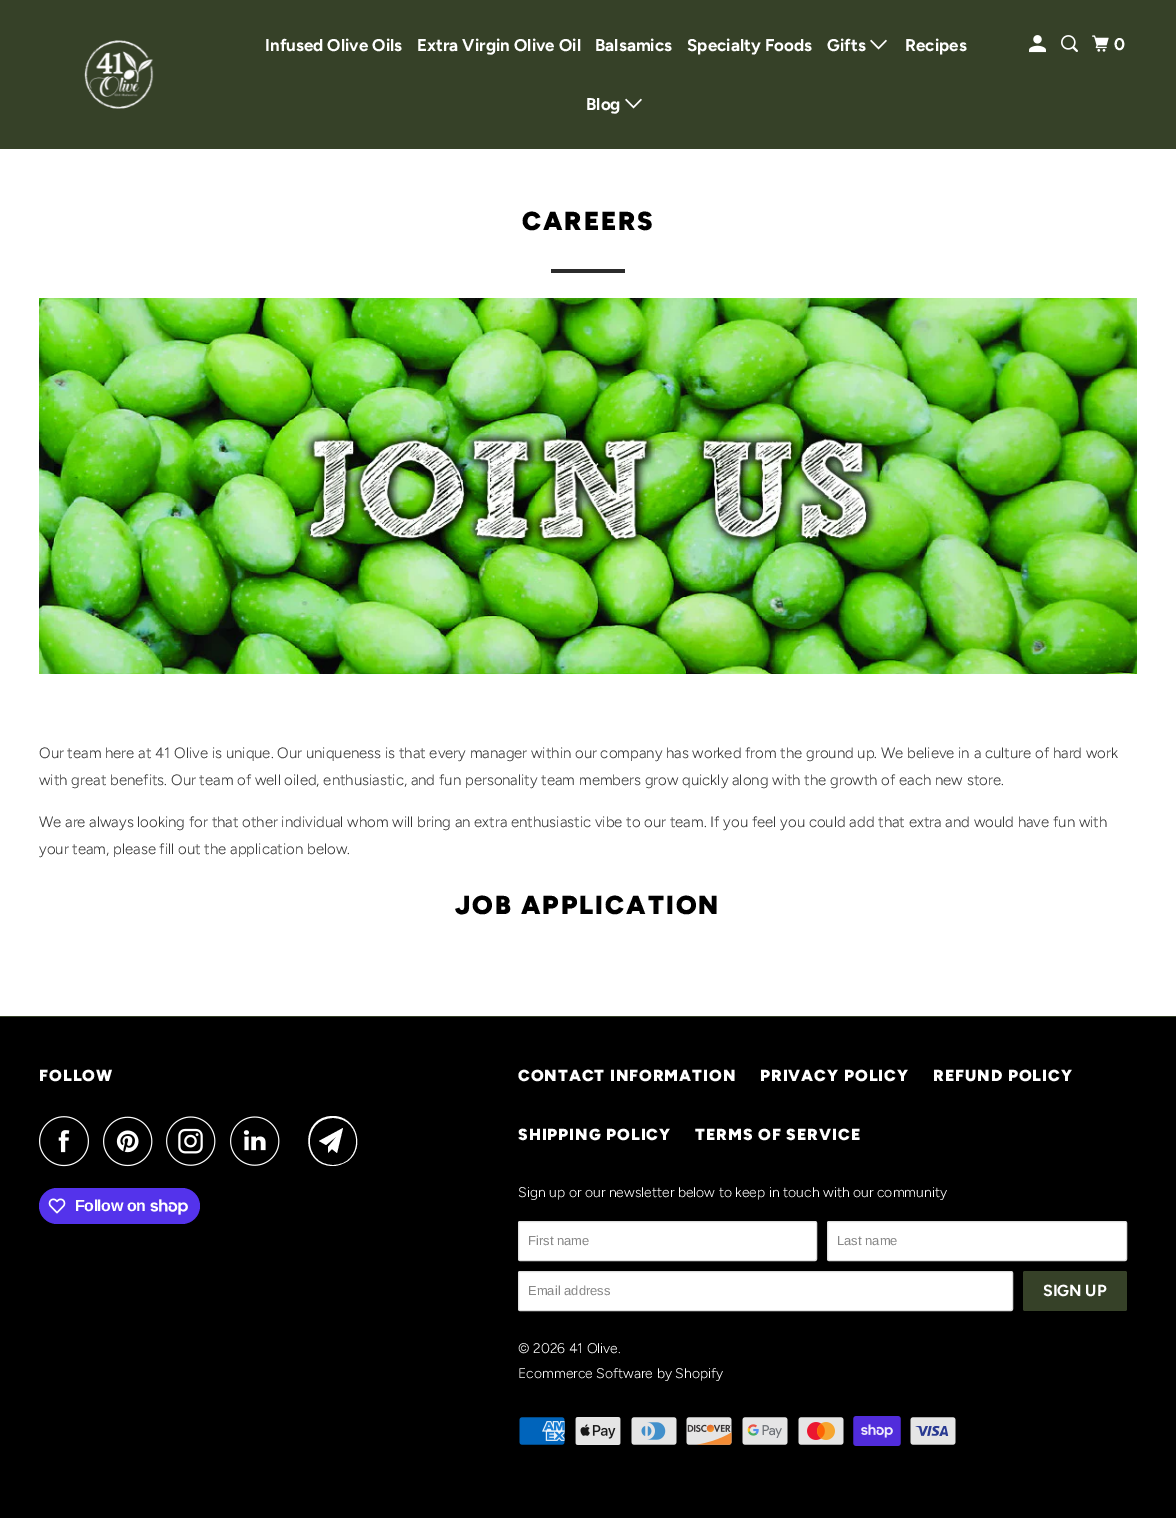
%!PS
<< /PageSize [1176 1518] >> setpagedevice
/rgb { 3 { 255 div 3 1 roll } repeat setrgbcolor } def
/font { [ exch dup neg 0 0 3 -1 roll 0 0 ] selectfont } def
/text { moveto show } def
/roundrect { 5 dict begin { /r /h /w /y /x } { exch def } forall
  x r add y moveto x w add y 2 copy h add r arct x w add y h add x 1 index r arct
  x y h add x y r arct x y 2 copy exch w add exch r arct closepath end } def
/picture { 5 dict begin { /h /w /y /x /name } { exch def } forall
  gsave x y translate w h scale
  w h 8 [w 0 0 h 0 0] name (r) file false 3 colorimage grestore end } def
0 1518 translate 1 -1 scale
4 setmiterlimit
0 0 0 rgb
0 0 1176 1518 rectfill
54 65 40 rgb
0 0 1176 149 rectfill
(img_01.rgb) 84 40 70 69 picture
(img_02.rgb) 870 39 17 11 picture
(img_02.rgb) 625 98 17 11 picture
(img_03.rgb) 1029 35 17 18 picture
(img_04.rgb) 1061 35 17 17 picture
(img_05.rgb) 1092 35 17 17 picture
255 255 255 rgb
0 149 1176 867 rectfill
43 43 43 rgb
551 269 74 4 rectfill
(img_06.rgb) 39 298 1098 376 picture
54 65 40 rgb
0 1016 1176 1 rectfill
(img_07.rgb) 39 1116 50 51 picture
(img_08.rgb) 103 1116 50 51 picture
(img_09.rgb) 166 1116 50 50 picture
(img_10.rgb) 230 1116 50 50 picture
255 255 255 rgb
337 1153 moveto -5 -4 rlineto -4 4 rlineto 0 -6 rlineto 9 -11 rlineto -11 9 rlineto -7 -4 rlineto 24 -13 rlineto closepath 333 1118 moveto -31 0 -31 47 0 47 rcurveto 31 0 31 -47 0 -47 rcurveto closepath 333 1166 moveto -33 0 -33 -50 0 -50 rcurveto 23 0 33 31 15 45 rcurveto -5 3 -10 5 -15 5 rcurveto closepath fill
84 51 235 rgb
39 1188 161 36 18 roundrect fill
(img_11.rgb) 48 1198 18 16 picture
(img_12.rgb) 150 1199 38 16 picture
255 255 255 rgb
518.5 1221.5 298 39 1.5 roundrect gsave fill grestore
223 223 223 rgb
stroke
255 255 255 rgb
827.5 1221.5 299 39 1.5 roundrect gsave fill grestore
223 223 223 rgb
stroke
255 255 255 rgb
518.5 1271.5 494 39 1.5 roundrect gsave fill grestore
223 223 223 rgb
stroke
54 65 40 rgb
1023 1271 104 40 2 roundrect fill
(img_13.rgb) 519 1417 46 28 picture
(img_14.rgb) 575 1417 46 28 picture
(img_15.rgb) 631 1417 46 28 picture
(img_16.rgb) 686 1417 46 28 picture
(img_17.rgb) 742 1417 46 28 picture
(img_18.rgb) 798 1417 46 28 picture
(img_19.rgb) 853 1416 48 30 picture
(img_20.rgb) 910 1417 46 28 picture
/Figtree-Bold 17 font
255 255 255 rgb
(Infused Olive Oils) 265 51 text
(Extra Virgin Olive Oil) 417 51 text
(Balsamics) 595 51 text
(Specialty Foods) 687 51 text
(Gifts) 827 51 text
(Recipes) 905 51 text
(Blog) 586 110 text
(0) 1114 50 text
/Figtree-Black 26 font
0 0 0 rgb
522 230 moveto 2 0 (CAREERS) ashow
/Figtree-Light 15 font
54 54 54 rgb
(Our team here at 41 Olive is unique. Our uniqueness is that every manager within our company has worked from the ground up. We believe in a culture of hard work) 39 758 text
(with great benefits. Our team of well oiled, enthusiastic, and fun personality team members grow quickly along with the growth of each new store.) 39 785 text
(We are always looking for that other individual whom will bring an extra enthusiastic vibe to our team. If you feel you could add that extra and would have fun with) 39 827 text
(your team, please fill out the application below.) 39 854 text
/Figtree-Black 26 font
0 0 0 rgb
455 914 moveto 2 0 (JOB APPLICATION) ashow
/Figtree-Black 16 font
255 255 255 rgb
39 1081 moveto 1 0 (FOLLOW) ashow
/LiberationSans-Bold 16 font
75 1211 moveto -0.5 0 (Follow on) ashow
/Figtree-Black 16 font
518 1081 moveto 1 0 (CONTACT INFORMATION) ashow
760 1081 moveto 1 0 (PRIVACY POLICY) ashow
933 1081 moveto 1 0 (REFUND POLICY) ashow
518 1140 moveto 1 0 (SHIPPING POLICY) ashow
695 1140 moveto 1 0 (TERMS OF SERVICE) ashow
/Figtree-Light 14 font
(Sign up or our newsletter below to keep in touch with our community) 518 1197 text
/LiberationSans-Regular 13 font
136 136 136 rgb
(First name) 528 1245 text
(Last name) 837 1245 text
(Email address) 528 1295 text
/Figtree-Bold 16 font
255 255 255 rgb
(SIGN UP) 1043 1296 text
/Figtree-Light 14 font
(© 2026 41 Olive.) 518 1353 text
(Ecommerce Software by Shopify) 518 1378 text
showpage
